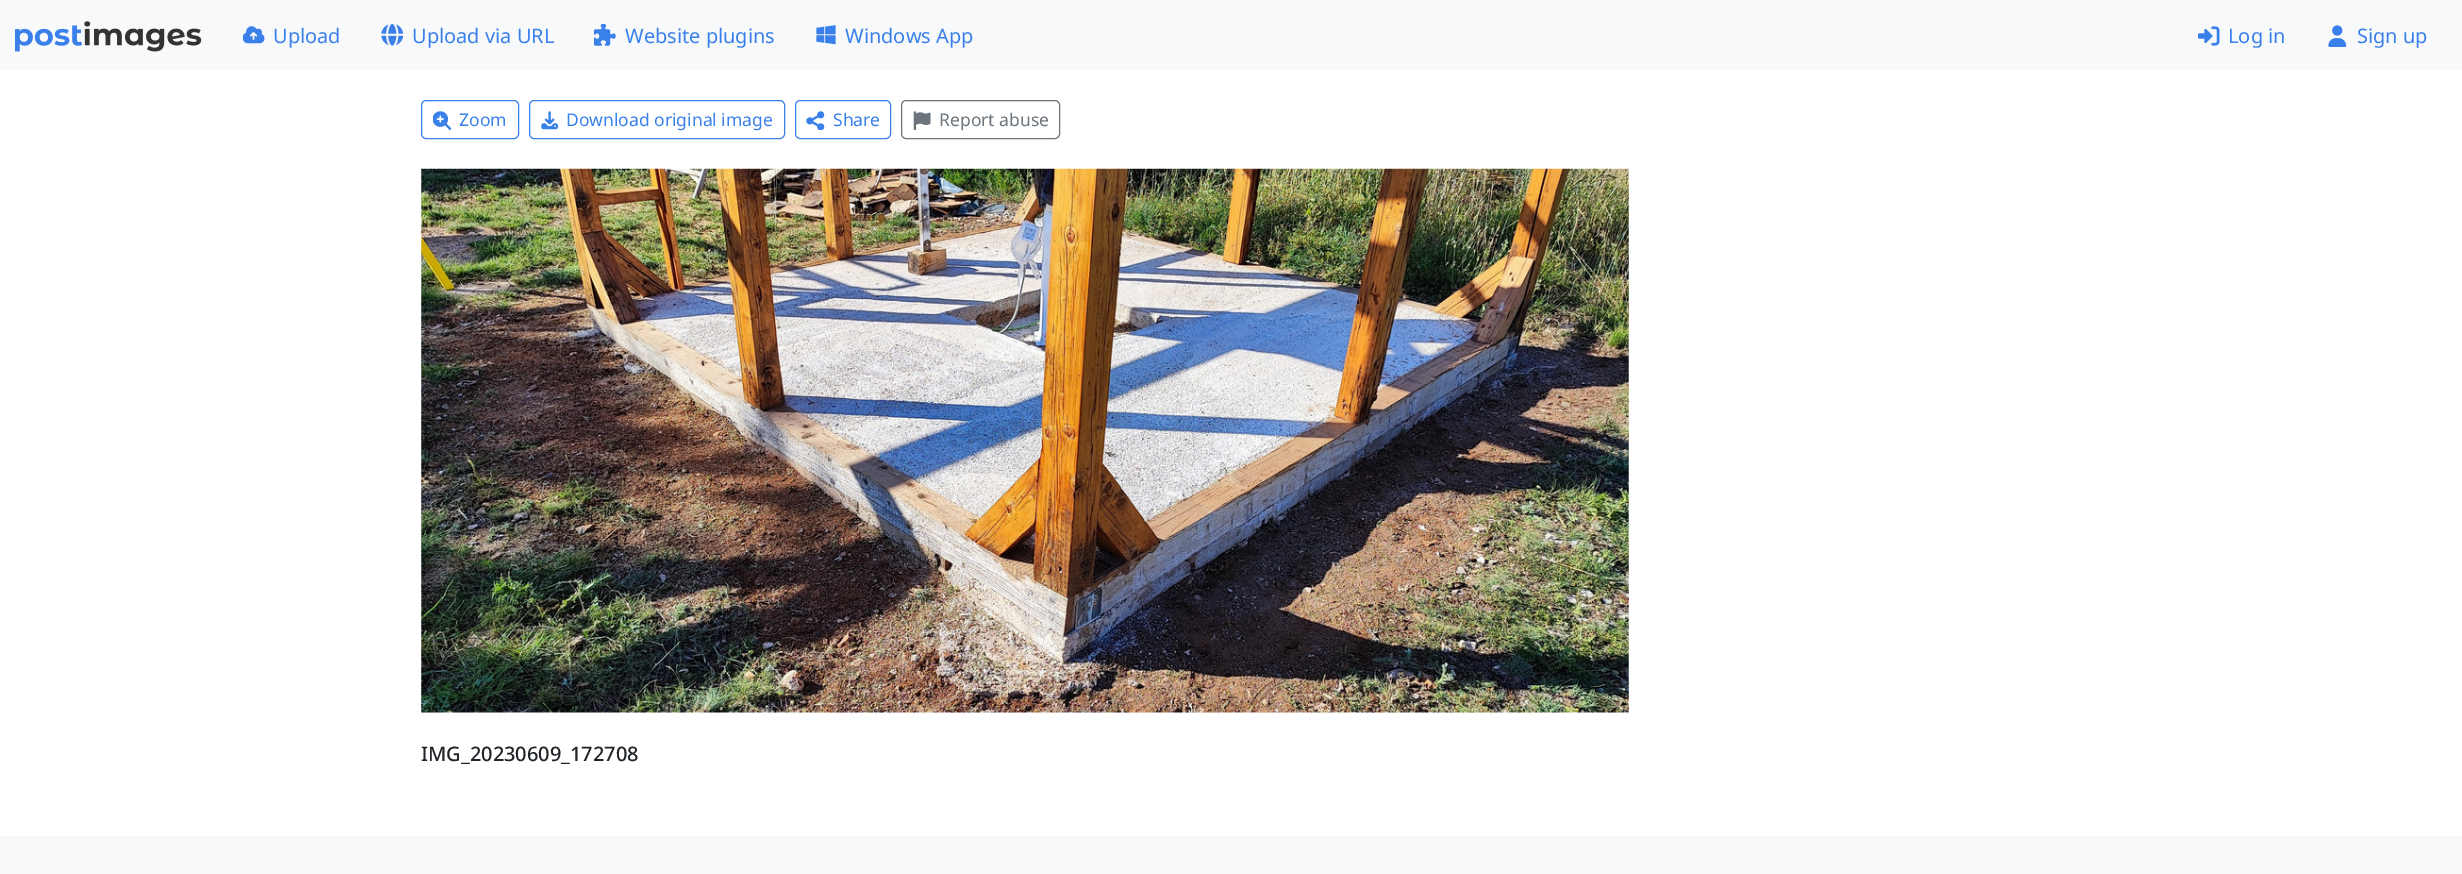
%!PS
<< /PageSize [2462 874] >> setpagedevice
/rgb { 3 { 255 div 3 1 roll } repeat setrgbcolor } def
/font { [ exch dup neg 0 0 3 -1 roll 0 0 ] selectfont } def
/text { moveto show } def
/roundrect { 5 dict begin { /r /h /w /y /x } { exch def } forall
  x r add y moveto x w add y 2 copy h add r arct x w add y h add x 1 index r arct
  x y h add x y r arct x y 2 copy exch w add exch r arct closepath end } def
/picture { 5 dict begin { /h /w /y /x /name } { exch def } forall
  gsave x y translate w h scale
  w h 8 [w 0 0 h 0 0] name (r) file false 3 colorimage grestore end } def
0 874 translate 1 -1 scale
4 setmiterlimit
255 255 255 rgb
0 0 2462 874 rectfill
248 249 250 rgb
0 0 2462 70 rectfill
(img_01.rgb) 15 21 187 31 picture
(img_02.rgb) 243 26 22 18 picture
(img_03.rgb) 381 24 22 22 picture
(img_04.rgb) 594 24 22 22 picture
(img_05.rgb) 816 25 20 20 picture
(img_06.rgb) 2198 26 22 20 picture
(img_07.rgb) 2328 25 19 22 picture
58 128 234 rgb
421.5 100.5 97 38 4.5 roundrect stroke
(img_08.rgb) 433 111 18 19 picture
529.5 100.5 255 38 4.5 roundrect stroke
(img_09.rgb) 541 111 18 19 picture
795.5 100.5 95 38 4.5 roundrect stroke
(img_10.rgb) 806 111 19 19 picture
108 117 125 rgb
901.5 100.5 158 38 4.5 roundrect stroke
(img_11.rgb) 913 111 18 19 picture
(img_12.rgb) 421 168 1208 545 picture
248 249 250 rgb
0 836 2462 38 rectfill
/NotoSans-Regular 20 font
58 128 234 rgb
(Upload) 273 43 text
(Upload via URL) 412 43 text
(Website plugins) 625 43 text
(Windows App) 845 43 text
(Log in) 2228 43 text
(Sign up) 2357 43 text
/NotoSans-Regular 17.5 font
(Zoom) 459 126 text
(Download original image) 566 126 text
(Share) 833 126 text
108 117 125 rgb
(Report abuse) 939 126 text
/NotoSans-Medium 20 font
33 37 41 rgb
(IMG_20230609_172708) 421 761 text
showpage
